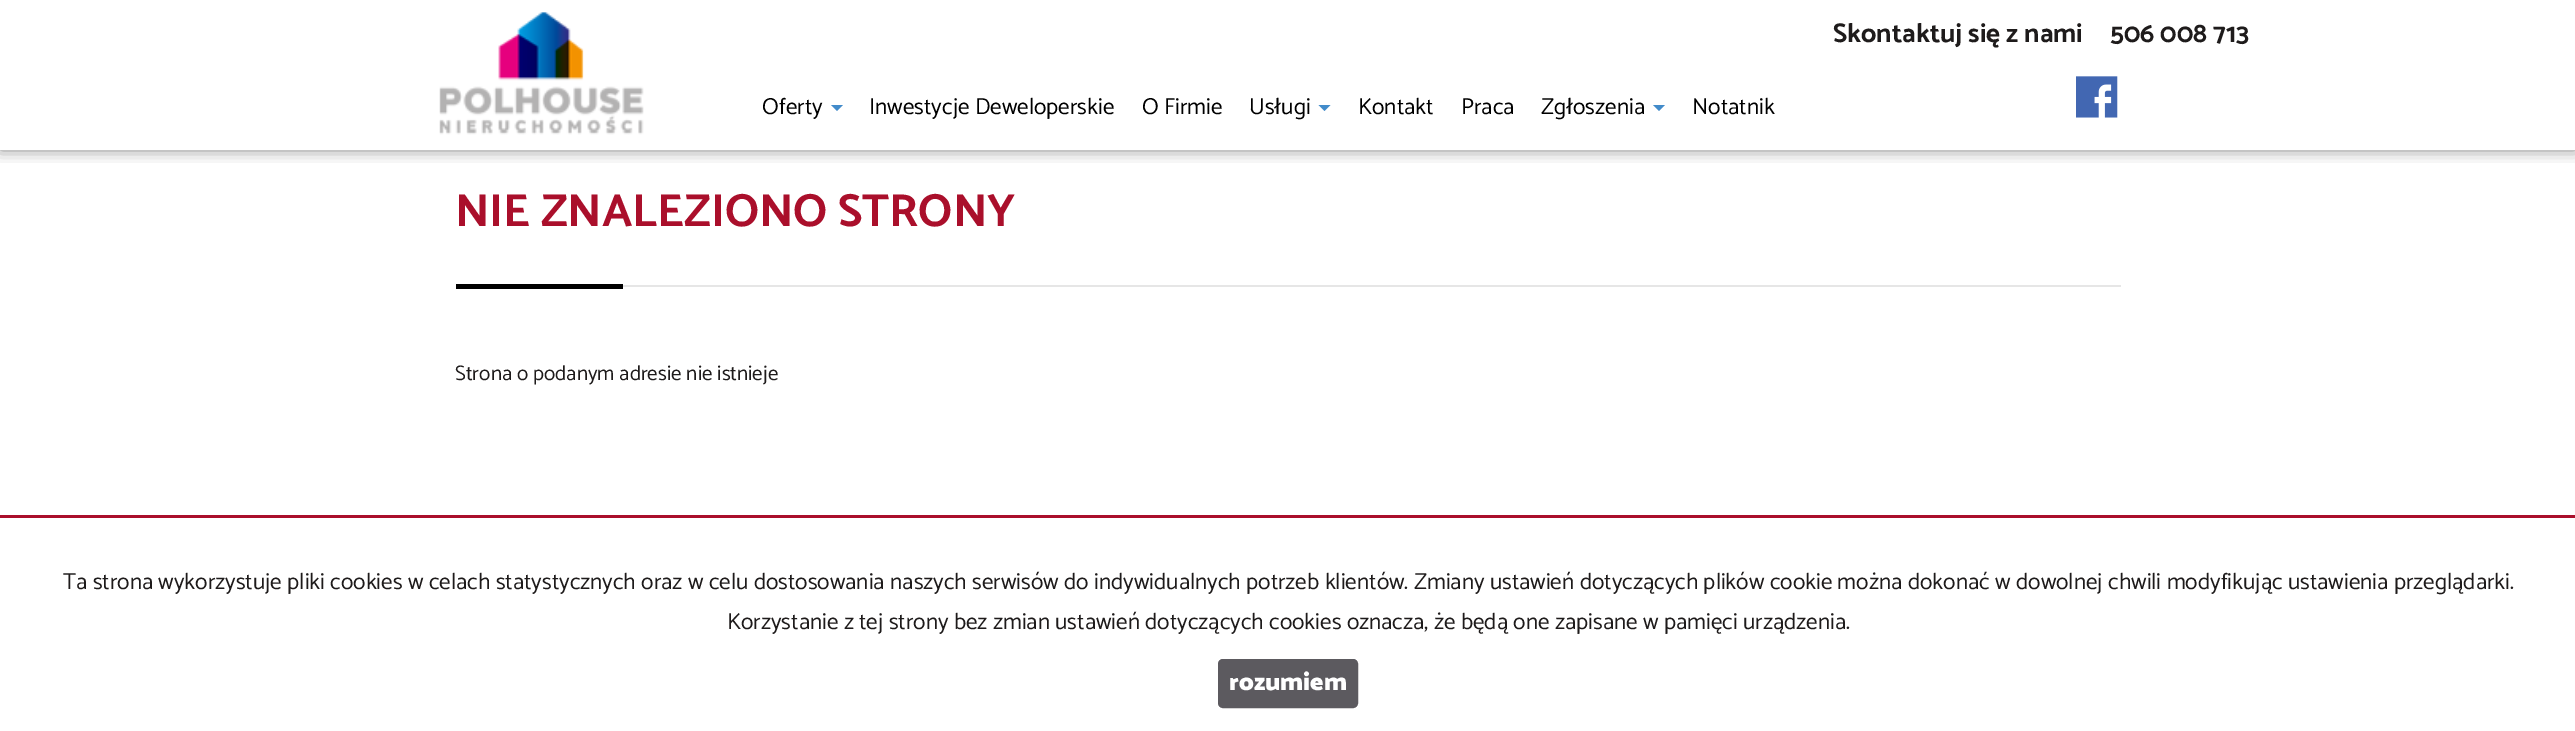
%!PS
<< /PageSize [2575 731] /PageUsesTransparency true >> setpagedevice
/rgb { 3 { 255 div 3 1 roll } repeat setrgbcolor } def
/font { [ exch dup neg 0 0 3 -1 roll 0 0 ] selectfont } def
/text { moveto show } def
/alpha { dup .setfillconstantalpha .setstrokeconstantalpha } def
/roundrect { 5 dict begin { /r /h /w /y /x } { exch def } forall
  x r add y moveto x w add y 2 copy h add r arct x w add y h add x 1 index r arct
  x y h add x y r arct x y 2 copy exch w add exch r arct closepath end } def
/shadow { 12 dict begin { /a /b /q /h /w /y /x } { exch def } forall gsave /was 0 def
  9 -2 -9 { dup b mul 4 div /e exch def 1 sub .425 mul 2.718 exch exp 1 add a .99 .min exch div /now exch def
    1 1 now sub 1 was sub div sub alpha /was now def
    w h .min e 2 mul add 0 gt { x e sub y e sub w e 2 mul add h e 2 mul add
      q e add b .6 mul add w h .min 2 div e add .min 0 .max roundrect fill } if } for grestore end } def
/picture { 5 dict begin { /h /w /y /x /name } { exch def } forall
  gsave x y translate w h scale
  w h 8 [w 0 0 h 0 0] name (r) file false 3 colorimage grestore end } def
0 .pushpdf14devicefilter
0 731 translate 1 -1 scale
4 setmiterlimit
255 255 255 rgb
0 0 2575 731 rectfill
gsave
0 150 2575 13 rectclip
0 0 0 rgb
0 0 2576 150 0 7.5 0.46 shadow
grestore
(img_01.rgb) 439 12 205 123 picture
66 139 202 rgb
831 105 moveto 12 0 rlineto -6 6 rlineto closepath fill
1318.5 105 moveto 12 0 rlineto -6 6 rlineto closepath fill
1653 105 moveto 12 0 rlineto -6 6 rlineto closepath fill
(img_02.rgb) 2076 76 42 42 picture
230 230 230 rgb
623 285 1498 2 rectfill
0 0 0 rgb
456 284 167 5 rectfill
170 15 43 rgb
0 515 2575 3 rectfill
92 90 95 rgb
1220.5 661.5 135 44 2.5 roundrect gsave fill grestore
5 setlinewidth
stroke
/Catamaran-Bold 27 font
30 27 27 rgb
(Skontaktuj się z nami) 1833 42 text
(506 008 713) 2110 42 text
/Catamaran-Regular 23.1 font
0 0 0 rgb
(Oferty) 762 114 text
(Inwestycje Deweloperskie) 869 114 text
(O Firmie) 1142 114 text
(Usługi) 1249 114 text
(Kontakt) 1358 114 text
(Praca) 1461 114 text
(Zgłoszenia) 1541 114 text
(Notatnik) 1692 114 text
/Catamaran-Bold 46.25 font
170 15 43 rgb
(NIE ZNALEZIONO STRONY) 455 226 text
/Catamaran-Regular 21 font
30 27 27 rgb
(Strona o podanym adresie nie istnieje) 455 380 text
/Catamaran-Regular 23.1 font
(Ta strona wykorzystuje pliki cookies w celach statystycznych oraz w celu dostosowania naszych serwisów do indywidualnych potrzeb klientów. Zmiany ustawień dotyczących plików cookie można dokonać w dowolnej chwili modyfikując ustawienia przeglądarki.) 63 589 text
(Korzystanie z tej strony bez zmian ustawień dotyczących cookies oznacza, że będą one zapisane w pamięci urządzenia.) 727 629 text
/Catamaran-Black 25 font
255 255 255 rgb
(rozumiem) 1229 690 text
.poppdf14devicefilter showpage
